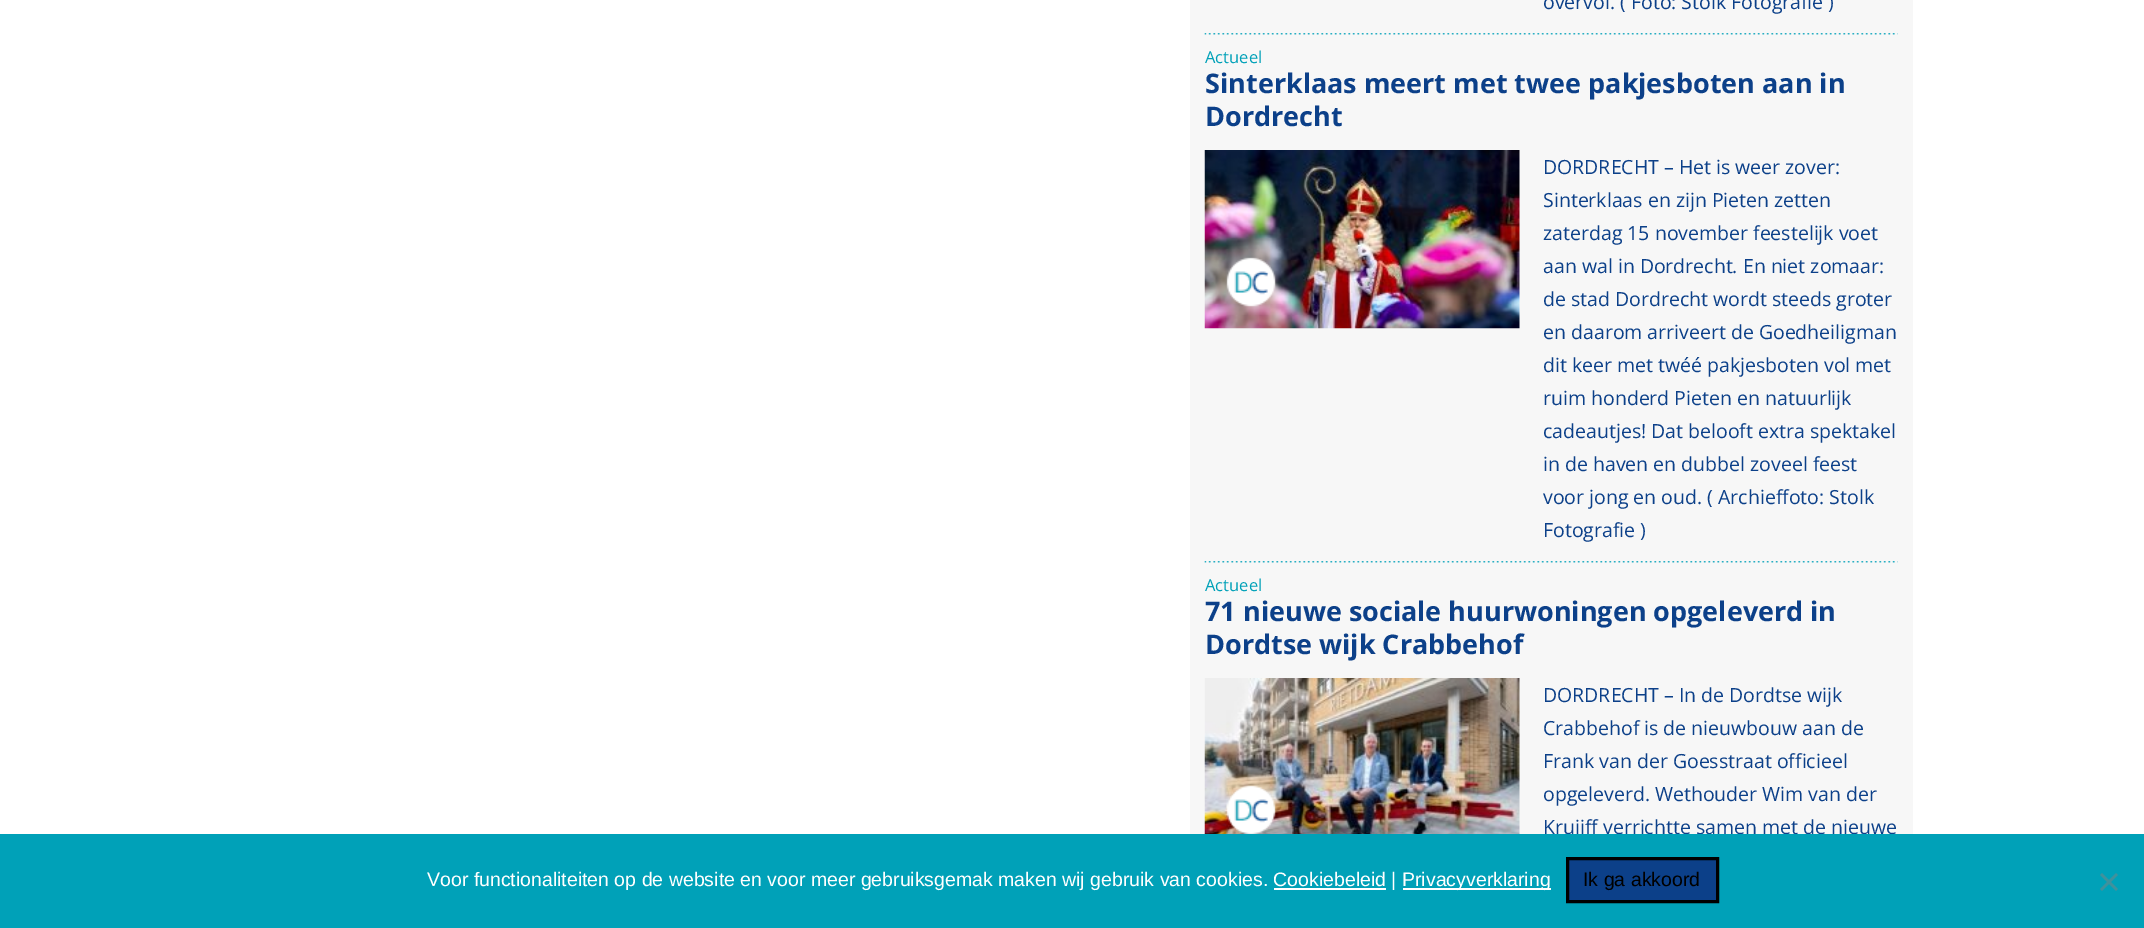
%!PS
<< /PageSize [2144 928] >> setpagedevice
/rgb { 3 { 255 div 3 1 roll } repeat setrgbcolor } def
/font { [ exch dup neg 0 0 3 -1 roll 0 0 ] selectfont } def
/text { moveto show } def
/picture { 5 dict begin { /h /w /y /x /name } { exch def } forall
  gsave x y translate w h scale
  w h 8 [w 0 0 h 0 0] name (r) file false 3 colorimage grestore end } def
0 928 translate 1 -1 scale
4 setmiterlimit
255 255 255 rgb
0 0 2144 928 rectfill
247 247 247 rgb
1190 0 723 834 rectfill
(img_01.rgb) 1204 33 694 2 picture
(img_02.rgb) 1204 150 316 179 picture
(img_03.rgb) 1226 257 50 50 picture
(img_01.rgb) 1204 561 694 2 picture
(img_04.rgb) 1204 678 316 156 picture
(img_05.rgb) 1226 785 50 49 picture
/OpenSans-Regular 19.5 font
12 64 137 rgb
(overvol. \( Foto: Stolk Fotografie \)) 1543 9 text
/OpenSans-Regular 16.5 font
0 161 184 rgb
(Actueel) 1205 63 text
/OpenSans-Bold 27 font
12 64 137 rgb
(Sinterklaas meert met twee pakjesboten aan in) 1205 93 text
(Dordrecht) 1205 126 text
/OpenSans-Regular 19.5 font
(DORDRECHT – Het is weer zover:) 1543 174 text
(Sinterklaas en zijn Pieten zetten) 1543 207 text
(zaterdag 15 november feestelijk voet) 1543 240 text
(aan wal in Dordrecht. En niet zomaar:) 1543 273 text
(de stad Dordrecht wordt steeds groter) 1543 306 text
(en daarom arriveert de Goedheiligman) 1543 339 text
(dit keer met twéé pakjesboten vol met) 1543 372 text
(ruim honderd Pieten en natuurlijk) 1543 405 text
(cadeautjes! Dat belooft extra spektakel) 1543 438 text
(in de haven en dubbel zoveel feest) 1543 471 text
(voor jong en oud. \( Archieffoto: Stolk) 1543 504 text
(Fotografie \)) 1543 537 text
/OpenSans-Regular 16.5 font
0 161 184 rgb
(Actueel) 1205 591 text
/OpenSans-Bold 27 font
12 64 137 rgb
(71 nieuwe sociale huurwoningen opgeleverd in) 1205 621 text
(Dordtse wijk Crabbehof) 1205 654 text
/OpenSans-Regular 19.5 font
(DORDRECHT – In de Dordtse wijk) 1543 702 text
(Crabbehof is de nieuwbouw aan de) 1543 735 text
(Frank van der Goesstraat officieel) 1543 768 text
(opgeleverd. Wethouder Wim van der) 1543 801 text
(Kruijff verrichtte samen met de nieuwe) 1543 834 text
0 161 184 rgb
0 834 2144 94 rectfill
/LiberationSans-Regular 19.5 font
255 255 255 rgb
(Voor functionaliteiten op de website en voor meer gebruiksgemak maken wij gebruik van cookies. Cookiebeleid) 427 886 text
(|) 1391 886 text
1403 888 148 2 rectfill
(Privacyverklaring) 1402 886 text
1274 888 112 2 rectfill
12 64 137 rgb
1567.5 858.5 moveto 150 0 rlineto 0 43 rlineto -150 0 rlineto closepath gsave fill grestore
0 0 0 rgb
3 setlinewidth
stroke
(Ik ga akkoord) 1583 886 text
64 145 156 rgb
2116 873 moveto 2 2 rlineto -16 16 rlineto -2 -2 rlineto closepath fill
2100 875 moveto 2 -2 rlineto 16 16 rlineto -2 2 rlineto closepath fill
showpage
